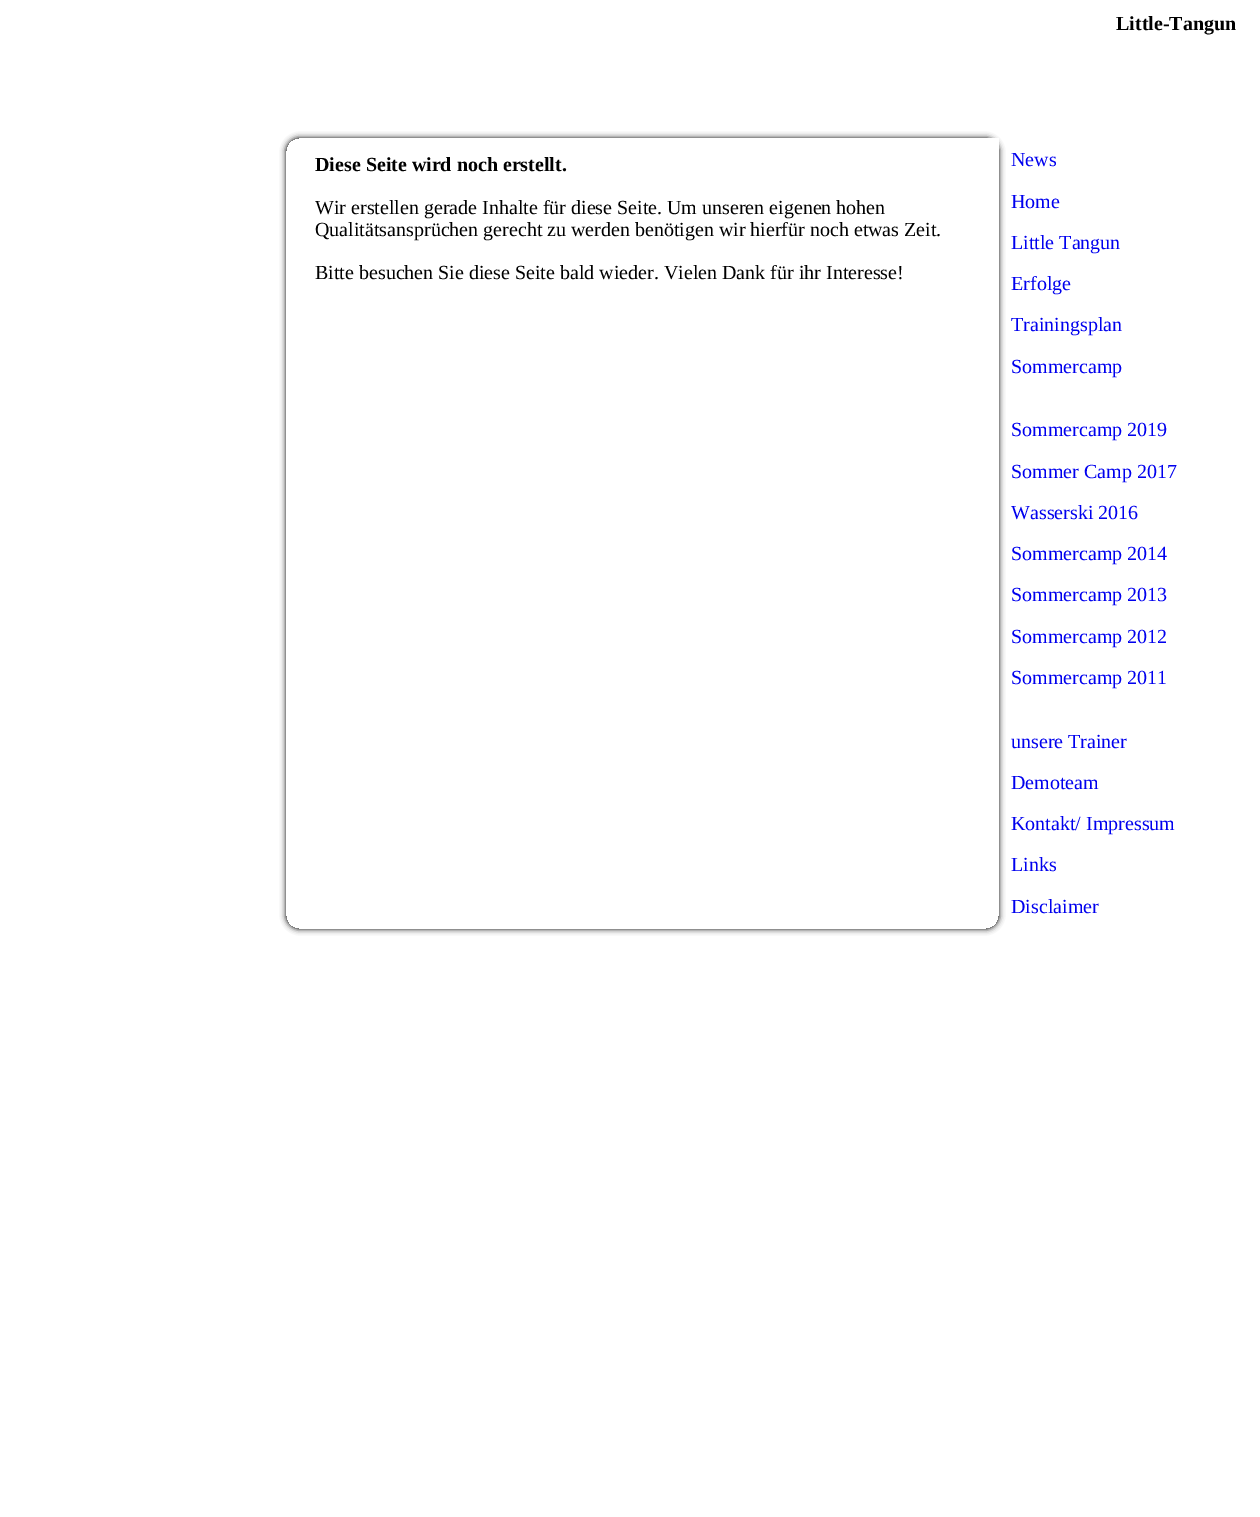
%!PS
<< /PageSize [1260 1517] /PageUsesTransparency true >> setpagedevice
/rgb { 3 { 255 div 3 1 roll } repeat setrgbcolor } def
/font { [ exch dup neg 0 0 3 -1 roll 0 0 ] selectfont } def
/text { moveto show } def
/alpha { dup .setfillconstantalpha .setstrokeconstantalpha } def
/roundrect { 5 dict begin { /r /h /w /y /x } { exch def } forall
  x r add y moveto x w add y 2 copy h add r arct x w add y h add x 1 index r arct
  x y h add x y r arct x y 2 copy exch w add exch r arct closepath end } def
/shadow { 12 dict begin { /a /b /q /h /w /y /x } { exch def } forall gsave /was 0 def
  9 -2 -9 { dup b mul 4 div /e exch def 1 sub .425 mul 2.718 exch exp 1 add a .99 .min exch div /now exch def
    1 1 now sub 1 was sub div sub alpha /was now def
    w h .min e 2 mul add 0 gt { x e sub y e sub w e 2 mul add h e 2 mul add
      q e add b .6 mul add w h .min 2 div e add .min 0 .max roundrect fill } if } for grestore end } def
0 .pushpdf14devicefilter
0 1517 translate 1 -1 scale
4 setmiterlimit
255 255 255 rgb
0 0 1260 1517 rectfill
gsave
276 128 moveto 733 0 rlineto 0 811 rlineto -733 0 rlineto closepath 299 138 moveto 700 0 rlineto 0 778 rlineto 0 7 -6 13 -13 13 rcurveto -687 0 rlineto -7 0 -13 -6 -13 -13 rcurveto 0 -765 rlineto 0 -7 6 -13 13 -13 rcurveto closepath eoclip newpath
0 0 0 rgb
286 138 713 791 13 3 1 shadow
grestore
/LiberationSerif-Bold 20 font
0 0 0 rgb
(Little-Tangun) 1116 30 text
(Diese Seite wird noch erstellt.) 315 171 text
/LiberationSerif-Regular 20 font
(Wir erstellen gerade Inhalte für diese Seite. Um unseren eigenen hohen) 315 214 text
(Qualitätsansprüchen gerecht zu werden benötigen wir hierfür noch etwas Zeit.) 315 236 text
(Bitte besuchen Sie diese Seite bald wieder. Vielen Dank für ihr Interesse!) 315 279 text
0 0 238 rgb
(News) 1011 166 text
(Home) 1011 208 text
(Little Tangun) 1011 249 text
(Erfolge) 1011 290 text
(Trainingsplan) 1011 331 text
(Sommercamp) 1011 373 text
(Sommercamp 2019) 1011 436 text
(Sommer Camp 2017) 1011 478 text
(Wasserski 2016) 1011 519 text
(Sommercamp 2014) 1011 560 text
(Sommercamp 2013) 1011 601 text
(Sommercamp 2012) 1011 643 text
(Sommercamp 2011) 1011 684 text
(unsere Trainer) 1011 748 text
(Demoteam) 1011 789 text
(Kontakt/ Impressum) 1011 830 text
(Links) 1011 871 text
(Disclaimer) 1011 913 text
.poppdf14devicefilter showpage
